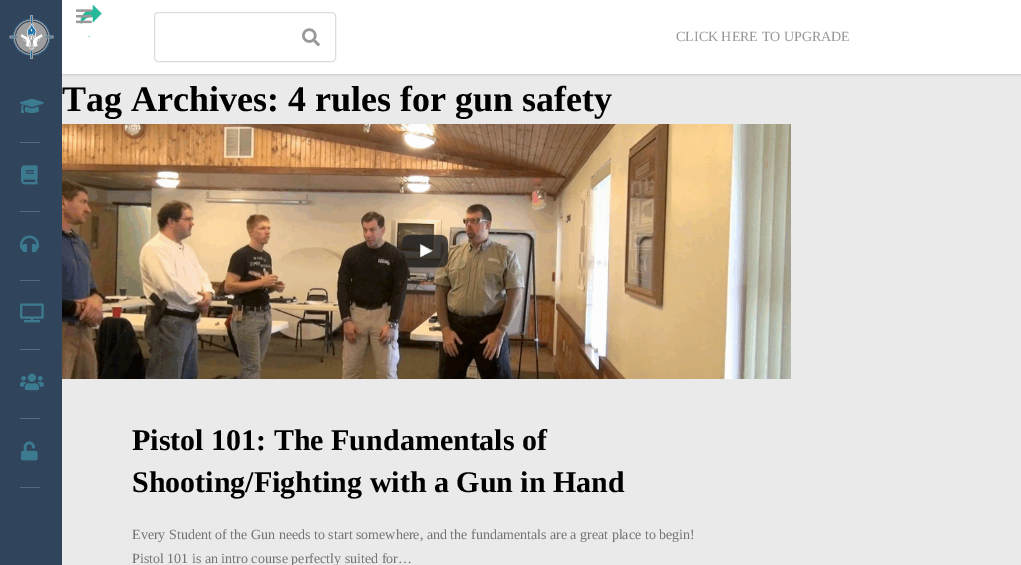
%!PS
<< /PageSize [1021 565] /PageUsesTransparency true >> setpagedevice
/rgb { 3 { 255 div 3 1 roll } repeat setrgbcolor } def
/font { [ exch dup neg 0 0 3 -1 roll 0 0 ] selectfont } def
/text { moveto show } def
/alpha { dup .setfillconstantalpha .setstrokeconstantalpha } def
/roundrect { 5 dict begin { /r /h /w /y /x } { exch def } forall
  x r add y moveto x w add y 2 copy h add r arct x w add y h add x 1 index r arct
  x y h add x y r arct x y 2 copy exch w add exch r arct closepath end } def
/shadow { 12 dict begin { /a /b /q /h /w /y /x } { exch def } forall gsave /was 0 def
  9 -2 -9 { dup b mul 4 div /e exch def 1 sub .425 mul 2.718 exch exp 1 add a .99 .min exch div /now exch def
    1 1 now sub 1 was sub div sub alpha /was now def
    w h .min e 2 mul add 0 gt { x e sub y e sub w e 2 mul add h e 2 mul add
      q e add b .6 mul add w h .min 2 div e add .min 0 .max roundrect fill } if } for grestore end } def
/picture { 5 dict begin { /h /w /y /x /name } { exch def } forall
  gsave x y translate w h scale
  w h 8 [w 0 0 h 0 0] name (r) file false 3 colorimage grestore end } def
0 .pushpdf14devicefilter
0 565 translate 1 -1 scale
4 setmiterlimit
48 68 92 rgb
0 0 1021 565 rectfill
222 222 222 rgb
62 74 959 1 rectfill
234 234 234 rgb
62 75 959 490 rectfill
0 0 0 rgb
62 2 959 74 0 1 0.05 shadow
46 65 87 rgb
0 74 62 1 rectfill
(img_01.rgb) 9 15 45 44 picture
255 255 255 rgb
62 0 959 74 rectfill
(img_02.rgb) 80 5 22 32 picture
(img_03.rgb) 76 9 16 15 picture
221 221 221 rgb
154.5 12.5 181 49 3.5 roundrect stroke
(img_04.rgb) 302 28 18 19 picture
(img_05.rgb) 20 98 24 15 picture
89 105 125 rgb
20 142 20 1 rectfill
(img_06.rgb) 21 165 17 20 picture
20 211 20 1 rectfill
(img_07.rgb) 20 235 19 18 picture
20 280 20 1 rectfill
(img_08.rgb) 20 303 24 20 picture
20 349 20 1 rectfill
(img_09.rgb) 20 373 24 18 picture
20 418 20 1 rectfill
(img_10.rgb) 21 441 17 20 picture
20 487 20 1 rectfill
(img_11.rgb) 62 124 729 255 picture
/LiberationSerif-Regular 14 font
153 153 153 rgb
(CLICK HERE TO UPGRADE) 676 41 text
/LiberationSerif-Bold 36 font
0 0 0 rgb
(Tag Archives: 4 rules for gun safety) 62 111 text
/LiberationSerif-Bold 30 font
(Pistol 101: The Fundamentals of) 132 450 text
(Shooting/Fighting with a Gun in Hand) 132 492 text
/LiberationSerif-Regular 14 font
115 115 115 rgb
(Every Student of the Gun needs to start somewhere, and the fundamentals are a great place to begin!) 132 539 text
(Pistol 101 is an intro course perfectly suited for…) 132 563 text
.poppdf14devicefilter showpage
